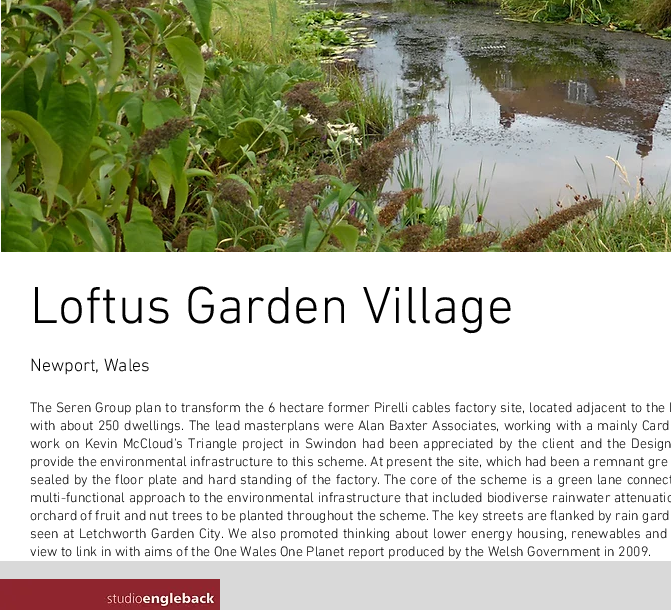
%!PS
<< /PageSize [671 610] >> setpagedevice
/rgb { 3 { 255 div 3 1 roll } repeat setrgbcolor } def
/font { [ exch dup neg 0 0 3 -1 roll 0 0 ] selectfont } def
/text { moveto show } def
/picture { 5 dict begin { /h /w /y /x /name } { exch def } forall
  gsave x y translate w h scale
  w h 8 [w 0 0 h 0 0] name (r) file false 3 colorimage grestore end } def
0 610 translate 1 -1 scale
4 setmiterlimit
255 255 255 rgb
0 0 671 610 rectfill
(img_01.rgb) 1 0 670 252 picture
217 217 217 rgb
0 561 671 49 rectfill
(img_02.rgb) 0 579 220 31 picture
/LiberationSans-Regular 12 font
77 93 24 rgb
(i) 91 227 text
/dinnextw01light-Light 53 font
0 0 0 rgb
(Loftus Garden Village) 30 323 text
/dinnextw01light-Light 18 font
(Newport, Wales) 30 371 text
/dinnextw01light-Light 14 font
30 412 moveto 0.5 0 32 (The Seren Group plan to transform the 6 hectare former Pirelli cables factory site, located adjacent to the L) widthshow
30 430 moveto 0.8 0 32 (with about 250 dwellings. The lead masterplans were Alan Baxter Associates, working with a mainly Card) widthshow
30 448 moveto 1.7 0 32 (work on Kevin McCloud’s Triangle project in Swindon had been appreciated by the client and the Design) widthshow
(provide the environmental infrastructure to this scheme. At present the site, which had been a remnant gre) 30 466 text
30 484 moveto 1 0 32 (sealed by the floor plate and hard standing of the factory.) widthshow
384 484 moveto 1 0 32 (The core of the scheme is a green lane connect) widthshow
30 502 moveto 0.5 0 32 (multi-functional approach to the environmental infrastructure that included biodiverse rainwater attenuatio) widthshow
(orchard of fruit and nut trees to be planted throughout the scheme. The key streets are flanked by rain gard) 30 520 text
30 538 moveto 1 0 32 (seen at Letchworth Garden City. We also promoted thinking about lower energy housing, renewables and) widthshow
(view to link in with aims of the One Wales One Planet report produced by the Welsh Government in 2009.) 30 556 text
showpage
